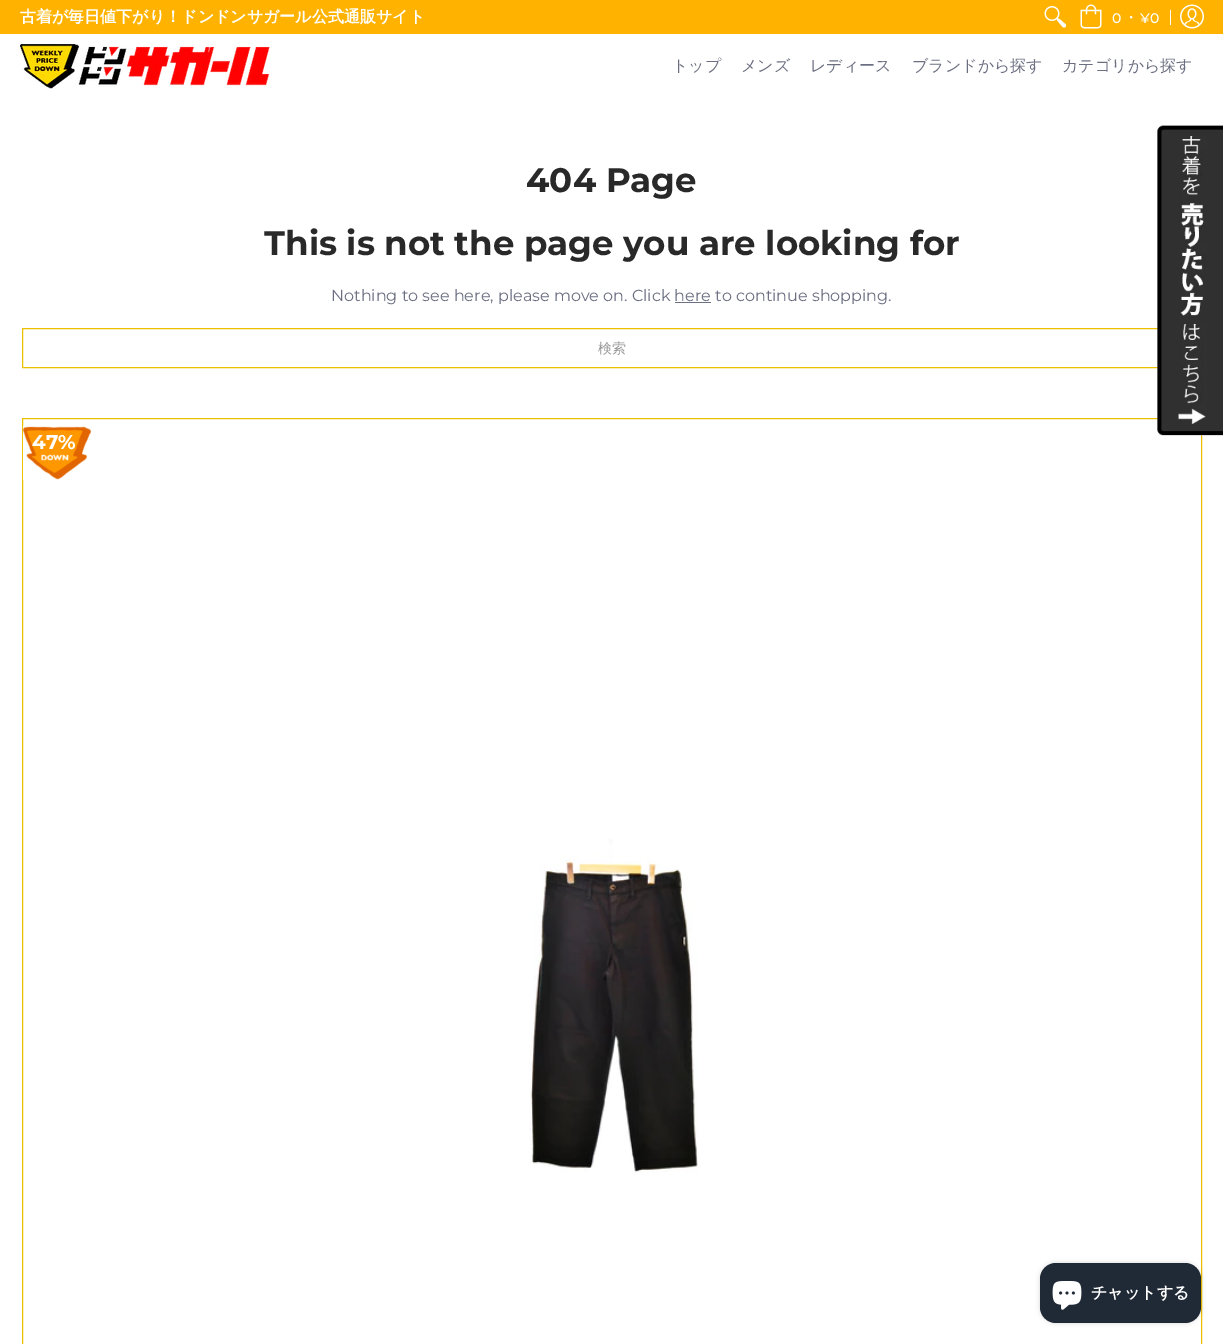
%!PS
<< /PageSize [1223 1344] /PageUsesTransparency true >> setpagedevice
/rgb { 3 { 255 div 3 1 roll } repeat setrgbcolor } def
/font { [ exch dup neg 0 0 3 -1 roll 0 0 ] selectfont } def
/text { moveto show } def
/alpha { dup .setfillconstantalpha .setstrokeconstantalpha } def
/roundrect { 5 dict begin { /r /h /w /y /x } { exch def } forall
  x r add y moveto x w add y 2 copy h add r arct x w add y h add x 1 index r arct
  x y h add x y r arct x y 2 copy exch w add exch r arct closepath end } def
/shadow { 12 dict begin { /a /b /q /h /w /y /x } { exch def } forall gsave /was 0 def
  9 -2 -9 { dup b mul 4 div /e exch def 1 sub .425 mul 2.718 exch exp 1 add a .99 .min exch div /now exch def
    1 1 now sub 1 was sub div sub alpha /was now def
    w h .min e 2 mul add 0 gt { x e sub y e sub w e 2 mul add h e 2 mul add
      q e add b .6 mul add w h .min 2 div e add .min 0 .max roundrect fill } if } for grestore end } def
/picture { 5 dict begin { /h /w /y /x /name } { exch def } forall
  gsave x y translate w h scale
  w h 8 [w 0 0 h 0 0] name (r) file false 3 colorimage grestore end } def
0 .pushpdf14devicefilter
0 1344 translate 1 -1 scale
4 setmiterlimit
255 255 255 rgb
0 0 1223 1344 rectfill
255 179 0 rgb
0 0 1223 34 rectfill
(img_01.rgb) 1044 6 23 22 picture
(img_02.rgb) 1080 4 22 25 picture
255 255 255 rgb
1170 10 1 15 rectfill
(img_03.rgb) 1180 4 24 25 picture
(img_04.rgb) 20 44 250 45 picture
107 111 129 rgb
675 302 36 1 rectfill
235 192 0 rgb
22.5 328.5 1179 39 rectstroke
22.5 418.5 1179 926 rectstroke
(img_05.rgb) 22 426 69 54 picture
(img_06.rgb) 529 839 169 334 picture
(img_07.rgb) 1157 125 66 311 picture
0 0 0 rgb
1040 1263 161 60 16 2.5 0.15 shadow
32 42 54 rgb
1040 1263 161 60 16 roundrect fill
(img_08.rgb) 1052 1281 30 29 picture
/WenQuanYiZenHei-Bold 16 font
255 255 255 rgb
(古着が毎日値下がり！ドンドンサガール公式通販サイト) 20 22 text
/Montserrat-Medium 14 font
(0) 1112 23 text
(•) 1129 21 text
(¥0) 1140 23 text
/WenQuanYiZenHei-Medium 16 font
107 111 129 rgb
(トップ) 672 71 text
(メンズ) 741 71 text
(レディース) 810 71 text
(ブランドから探す) 912 71 text
(カテゴリから探す) 1062 71 text
/Montserrat-Bold 34 font
41 41 41 rgb
(404 Page) 526 192 text
(This is not the page you are looking for) 264 255 text
/Montserrat-Regular 16 font
107 111 129 rgb
(Nothing to see here, please move on. Click here to continue shopping.) 331 301 text
/WenQuanYiZenHei-Medium 14 font
152 152 152 rgb
(検索) 598 353 text
/Montserrat-Bold 20 font
255 255 255 rgb
(47%) 32 449 text
/WenQuanYiZenHei-Bold 16 font
(チャットする) 1091 1298 text
.poppdf14devicefilter showpage
